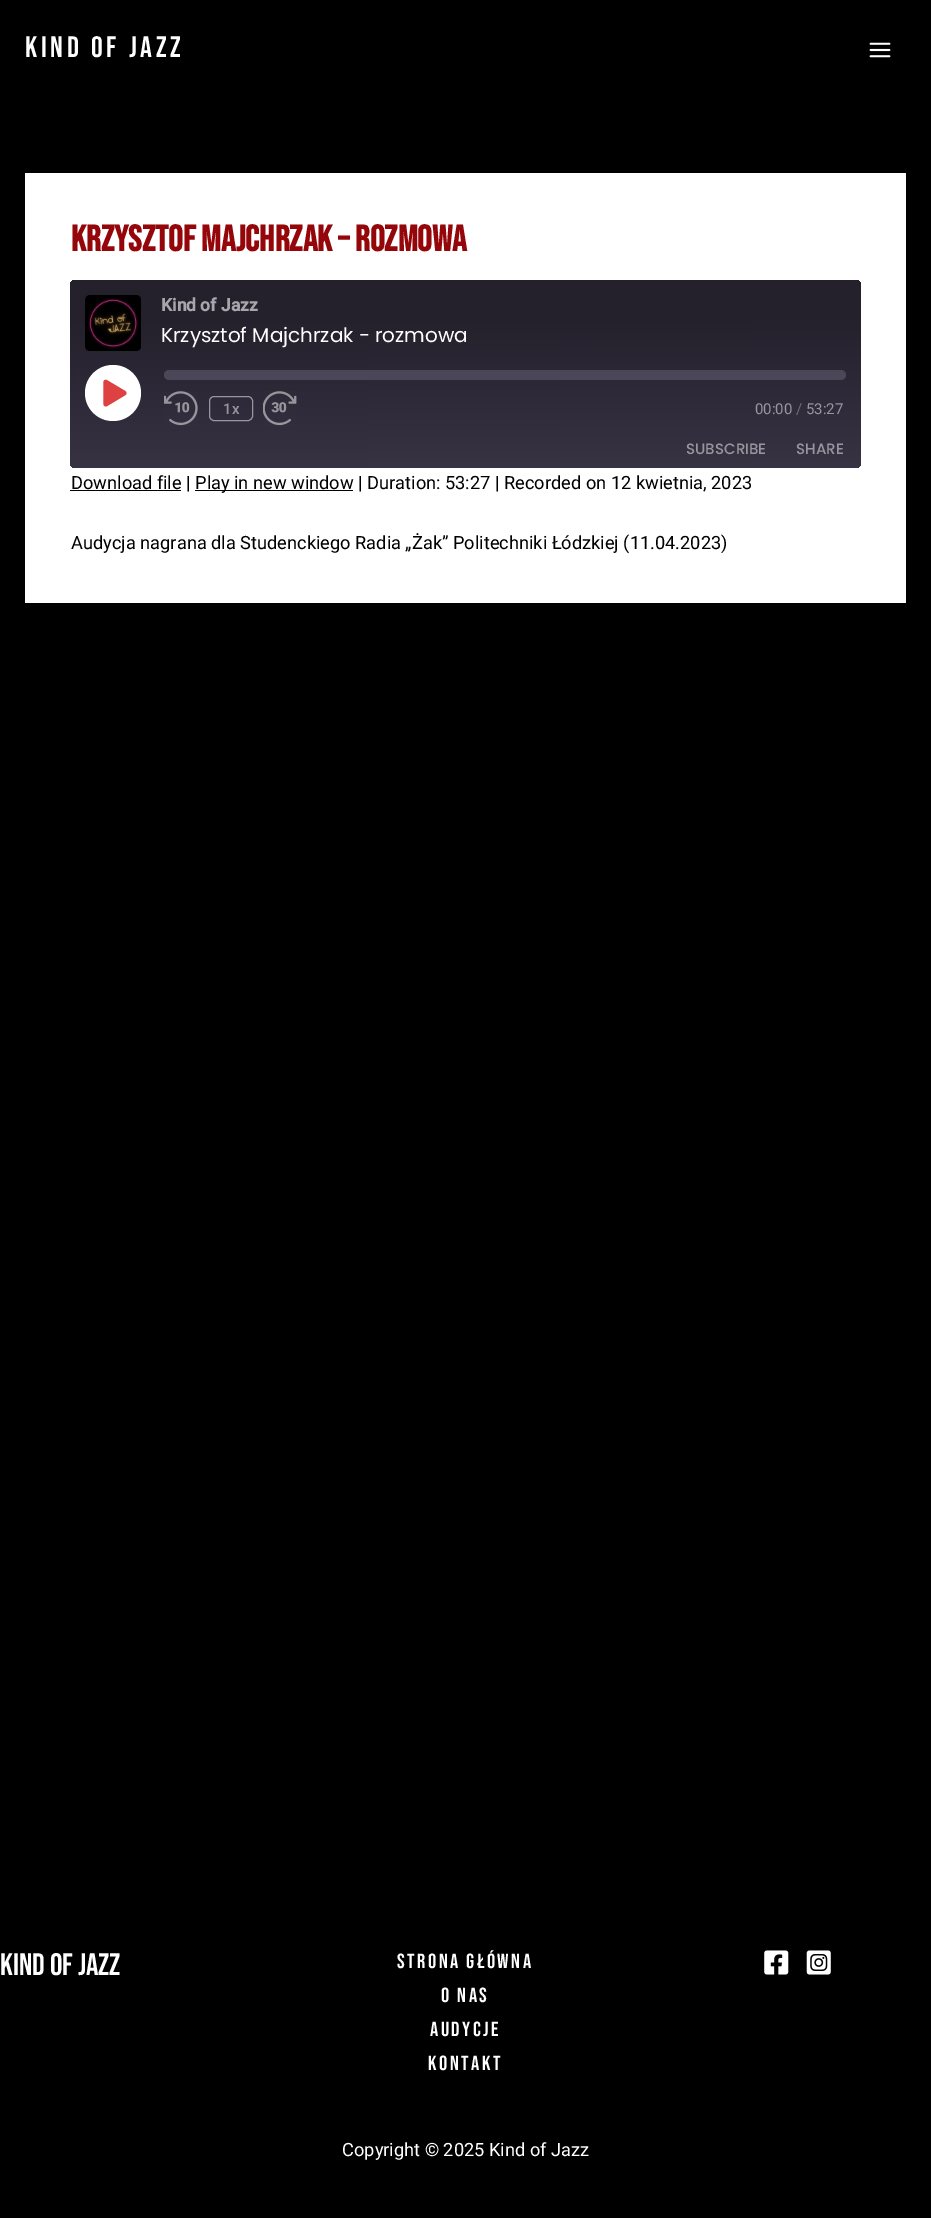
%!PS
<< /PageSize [931 2218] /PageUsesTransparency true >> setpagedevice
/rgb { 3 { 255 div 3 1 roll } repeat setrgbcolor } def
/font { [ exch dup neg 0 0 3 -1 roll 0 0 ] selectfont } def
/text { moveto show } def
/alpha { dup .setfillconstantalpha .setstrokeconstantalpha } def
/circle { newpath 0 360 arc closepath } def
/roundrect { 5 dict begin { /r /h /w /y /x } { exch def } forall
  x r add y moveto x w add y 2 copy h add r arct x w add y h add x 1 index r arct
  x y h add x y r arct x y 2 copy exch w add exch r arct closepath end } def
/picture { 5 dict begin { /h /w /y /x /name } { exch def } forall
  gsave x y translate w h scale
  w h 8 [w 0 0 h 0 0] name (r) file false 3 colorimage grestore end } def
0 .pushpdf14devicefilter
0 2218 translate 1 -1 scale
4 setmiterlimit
0 0 0 rgb
0 0 931 2218 rectfill
(img_01.rgb) 869 42 22 16 picture
255 255 255 rgb
25 173 881 430 rectfill
gsave 70 280 791 188 5 roundrect clip newpath
<< /ShadingType 2 /ColorSpace /DeviceRGB /Coords [466 470 465 278] /Extend [true true] /Function << /FunctionType 3 /Domain [0 1] /Functions [<< /FunctionType 2 /Domain [0 1] /C0 [0.22 0.2 0.267] /C1 [0.22 0.2 0.267] /N 1 >> << /FunctionType 2 /Domain [0 1] /C0 [0.22 0.2 0.267] /C1 [0.141 0.129 0.173] /N 1 >> << /FunctionType 2 /Domain [0 1] /C0 [0.141 0.129 0.173] /C1 [0.141 0.129 0.173] /N 1 >>] /Bounds [0.01 0.78] /Encode [0 1 0 1 0 1] >> >> shfill grestore
(img_02.rgb) 85 295 56 56 picture
113 393 28 circle fill
(img_03.rgb) 103 379 24 28 picture
76 70 89 rgb
164 370 682 10 5 roundrect fill
(img_04.rgb) 164 391 34 35 picture
0.5 alpha
255 255 255 rgb
209.5 396.5 43 24 4.5 roundrect stroke
1 alpha
(img_05.rgb) 263 391 34 35 picture
0 0 0 rgb
70 490 111 1 rectfill
195 490 158 1 rectfill
(img_06.rgb) 764 1950 25 25 picture
(img_07.rgb) 806 1950 25 25 picture
/BebasNeue-Regular 29.5 font
255 255 255 rgb
25 57 moveto 3.75 0 (Kind of Jazz) ashow
/BebasNeue-Bold 36.5 font
148 6 9 rgb
(Krzysztof Majchrzak – rozmowa) 71 251 text
/Roboto-Bold 17.5 font
167 166 171 rgb
(Kind of Jazz) 161 311 text
/Poppins-Regular 20 font
255 255 255 rgb
(Krzysztof Majchrzak - rozmowa) 161 342 text
/Roboto-Medium 15 font
151 149 157 rgb
(1x) 223 414 text
/Roboto-Regular 15 font
(00:00) 755 414 text
110 107 118 rgb
(/) 796 414 text
151 149 157 rgb
(53:27) 806 414 text
/Poppins-Medium 15 font
(SUBSCRIBE) 686 454 text
(SHARE) 796 454 text
/Roboto-Regular 18.25 font
0 0 0 rgb
(Download file |) 71 489 text
(Play in new window | Duration: 53:27 | Recorded on 12 kwietnia, 2023) 195 489 text
(Audycja nagrana dla Studenckiego Radia „Żak” Politechniki Łódzkiej \(11.04.2023\)) 71 549 text
/BebasNeue-Regular 31 font
255 255 255 rgb
(Kind of jazz) 0 1975 text
/BebasNeue-Regular 20.5 font
397 1968 moveto 2.5 0 (Strona główna) ashow
441 2002 moveto 2.5 0 (O nas) ashow
430 2036 moveto 2.5 0 (Audycje) ashow
428 2070 moveto 2.5 0 (Kontakt) ashow
/Roboto-Regular 18.25 font
(Copyright © 2025 Kind of Jazz) 342 2156 text
.poppdf14devicefilter showpage
